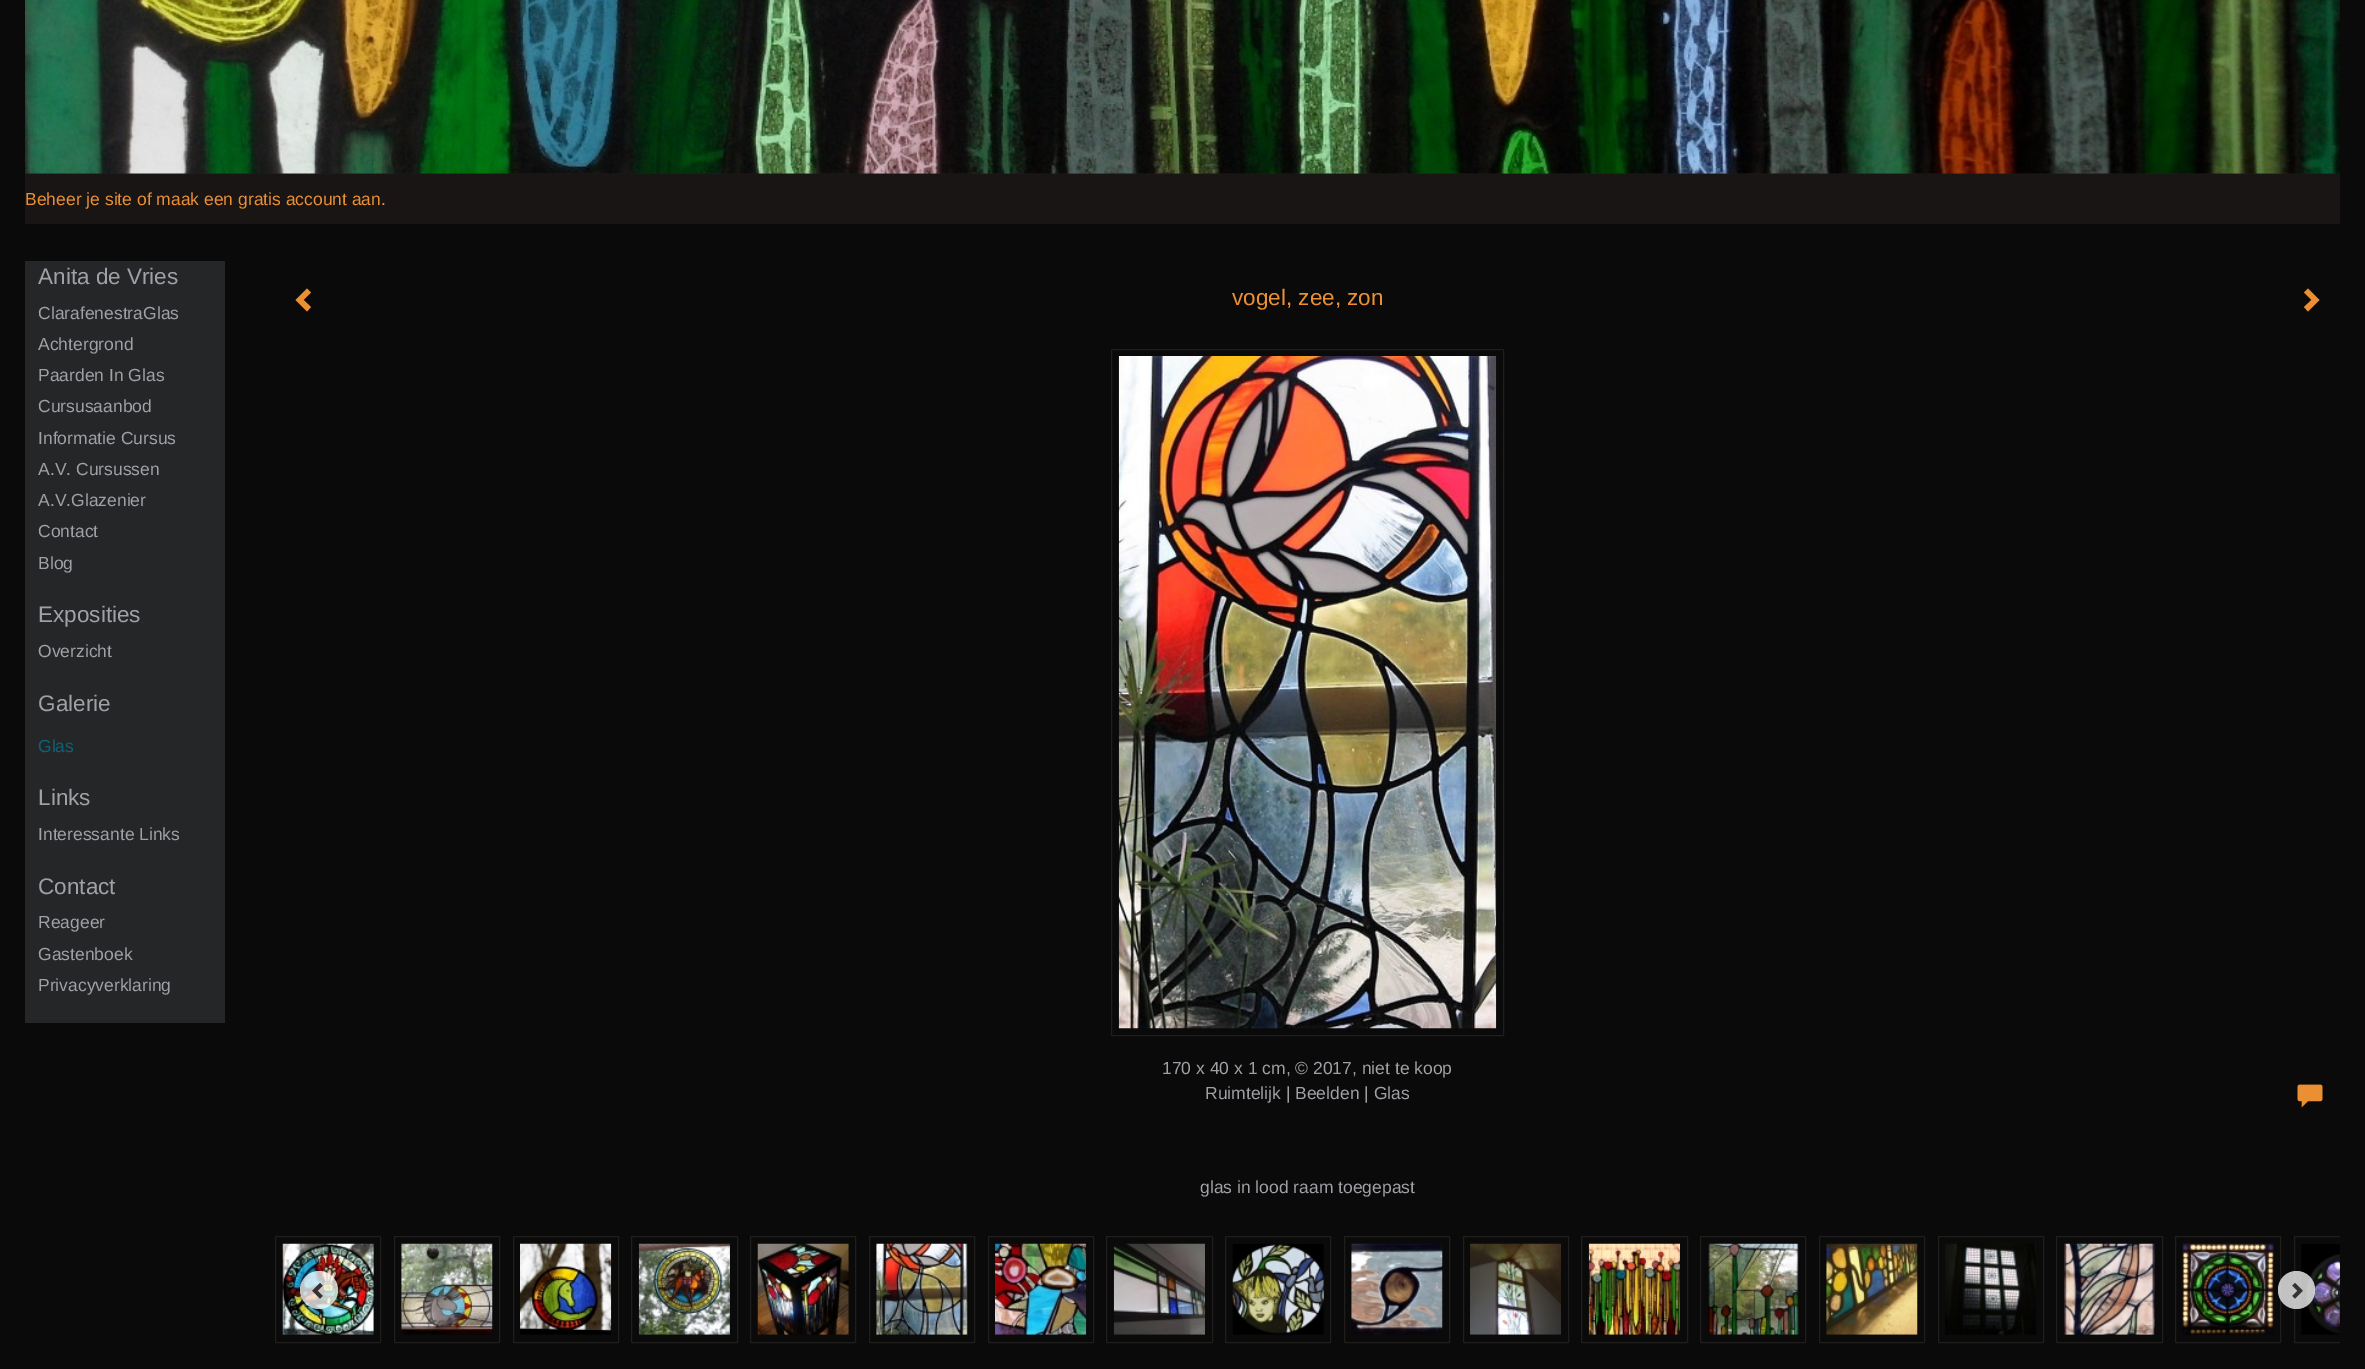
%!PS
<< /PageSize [2365 1369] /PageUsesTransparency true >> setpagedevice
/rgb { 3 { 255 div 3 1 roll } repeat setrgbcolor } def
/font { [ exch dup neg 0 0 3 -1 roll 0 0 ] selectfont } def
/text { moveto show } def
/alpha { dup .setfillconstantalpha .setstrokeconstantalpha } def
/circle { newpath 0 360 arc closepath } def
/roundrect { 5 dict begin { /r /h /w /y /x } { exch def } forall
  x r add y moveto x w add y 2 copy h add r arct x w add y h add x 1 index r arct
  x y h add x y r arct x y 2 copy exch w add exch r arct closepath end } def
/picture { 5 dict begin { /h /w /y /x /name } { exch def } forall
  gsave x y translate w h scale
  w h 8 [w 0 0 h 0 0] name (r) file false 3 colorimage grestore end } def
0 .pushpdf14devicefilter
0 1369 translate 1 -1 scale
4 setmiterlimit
10 10 10 rgb
0 0 2365 1369 rectfill
32 29 29 rgb
25 173 2315 1 rectfill
(img_01.rgb) 25 0 2315 174 picture
25 21 21 rgb
25 174 2315 50 rectfill
37 38 40 rgb
25 261 200 762 rectfill
235 143 51 rgb
311 292.5 moveto -7.5 7.5 rlineto 7.5 7 rlineto -4 4.5 rlineto -11.5 -11.5 rlineto 11.5 -11.5 rlineto closepath fill
2319.5 300 moveto -11.5 11.5 rlineto -4 -4.5 rlineto 7.5 -7 rlineto -7.5 -7.5 rlineto 4 -4 rlineto closepath fill
32 29 29 rgb
1111.5 349.5 392 686 0.5 roundrect stroke
(img_02.rgb) 1118 356 379 673 picture
(img_03.rgb) 2297 1084 26 24 picture
275.5 1236.5 105 106 0.5 roundrect stroke
(img_04.rgb) 282 1243 92 92 picture
394.5 1236.5 105 106 0.5 roundrect stroke
(img_05.rgb) 401 1243 92 92 picture
513.5 1236.5 105 106 0.5 roundrect stroke
(img_06.rgb) 520 1243 92 92 picture
631.5 1236.5 106 106 0.5 roundrect stroke
(img_07.rgb) 638 1243 92 92 picture
750.5 1236.5 105 106 0.5 roundrect stroke
(img_08.rgb) 757 1243 92 92 picture
869.5 1236.5 105 106 0.5 roundrect stroke
(img_09.rgb) 876 1243 92 92 picture
988.5 1236.5 105 106 0.5 roundrect stroke
(img_10.rgb) 995 1243 92 92 picture
1106.5 1236.5 106 106 0.5 roundrect stroke
(img_11.rgb) 1113 1243 92 92 picture
1225.5 1236.5 105 106 0.5 roundrect stroke
(img_12.rgb) 1232 1244 92 91 picture
1344.5 1236.5 105 106 0.5 roundrect stroke
(img_13.rgb) 1351 1243 92 92 picture
1463.5 1236.5 105 106 0.5 roundrect stroke
(img_14.rgb) 1470 1243 91 92 picture
1581.5 1236.5 106 106 0.5 roundrect stroke
(img_15.rgb) 1588 1243 92 92 picture
1700.5 1236.5 105 106 0.5 roundrect stroke
(img_16.rgb) 1708 1243 91 92 picture
1819.5 1236.5 105 106 0.5 roundrect stroke
(img_17.rgb) 1826 1243 92 92 picture
1938.5 1236.5 105 106 0.5 roundrect stroke
(img_18.rgb) 1945 1243 91 92 picture
2056.5 1236.5 106 106 0.5 roundrect stroke
(img_19.rgb) 2064 1243 91 92 picture
2175.5 1236.5 105 106 0.5 roundrect stroke
(img_20.rgb) 2182 1243 92 92 picture
gsave
275 1230 2065 119 rectclip
2294.5 1236.5 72 106 0.5 roundrect stroke
grestore
(img_21.rgb) 2301 1244 39 91 picture
0.75 alpha
255 255 255 rgb
319 1290 19 circle fill
1 alpha
(img_22.rgb) 312 1282 11 17 picture
0.75 alpha
2278 1271 37 38 18.5 roundrect fill
1 alpha
(img_23.rgb) 2292 1282 11 17 picture
/LiberationSans-Regular 17.5 font
235 143 51 rgb
(Beheer je site of maak een gratis account aan.) 25 205 text
/LiberationSans-Regular 22.5 font
160 160 166 rgb
(Anita de Vries) 38 284 text
/LiberationSans-Regular 17.5 font
(ClarafenestraGlas) 38 319 text
(Achtergrond) 38 350 text
(Paarden In Glas) 38 381 text
(Cursusaanbod) 38 412 text
(Informatie Cursus) 38 444 text
(A.V. Cursussen) 38 475 text
(A.V.Glazenier) 38 506 text
(Contact) 38 537 text
(Blog) 38 569 text
/LiberationSans-Regular 22.5 font
(Exposities) 38 622 text
/LiberationSans-Regular 17.5 font
(Overzicht) 38 657 text
/LiberationSans-Regular 22.5 font
(Galerie) 38 711 text
/LiberationSans-Regular 17.5 font
14 98 119 rgb
(Glas) 38 752 text
/LiberationSans-Regular 22.5 font
160 160 166 rgb
(Links) 38 805 text
/LiberationSans-Regular 17.5 font
(Interessante Links) 38 840 text
/LiberationSans-Regular 22.5 font
(Contact) 38 894 text
/LiberationSans-Regular 17.5 font
(Reageer) 38 928 text
(Gastenboek) 38 960 text
(Privacyverklaring) 38 991 text
/LiberationSans-Regular 22.5 font
235 143 51 rgb
(vogel, zee, zon) 1232 305 text
/LiberationSans-Regular 17.5 font
160 160 166 rgb
(170 x 40 x 1 cm, © 2017, niet te koop) 1162 1074 text
(Ruimtelijk | Beelden | Glas) 1205 1099 text
(glas in lood raam toegepast) 1200 1193 text
.poppdf14devicefilter showpage
